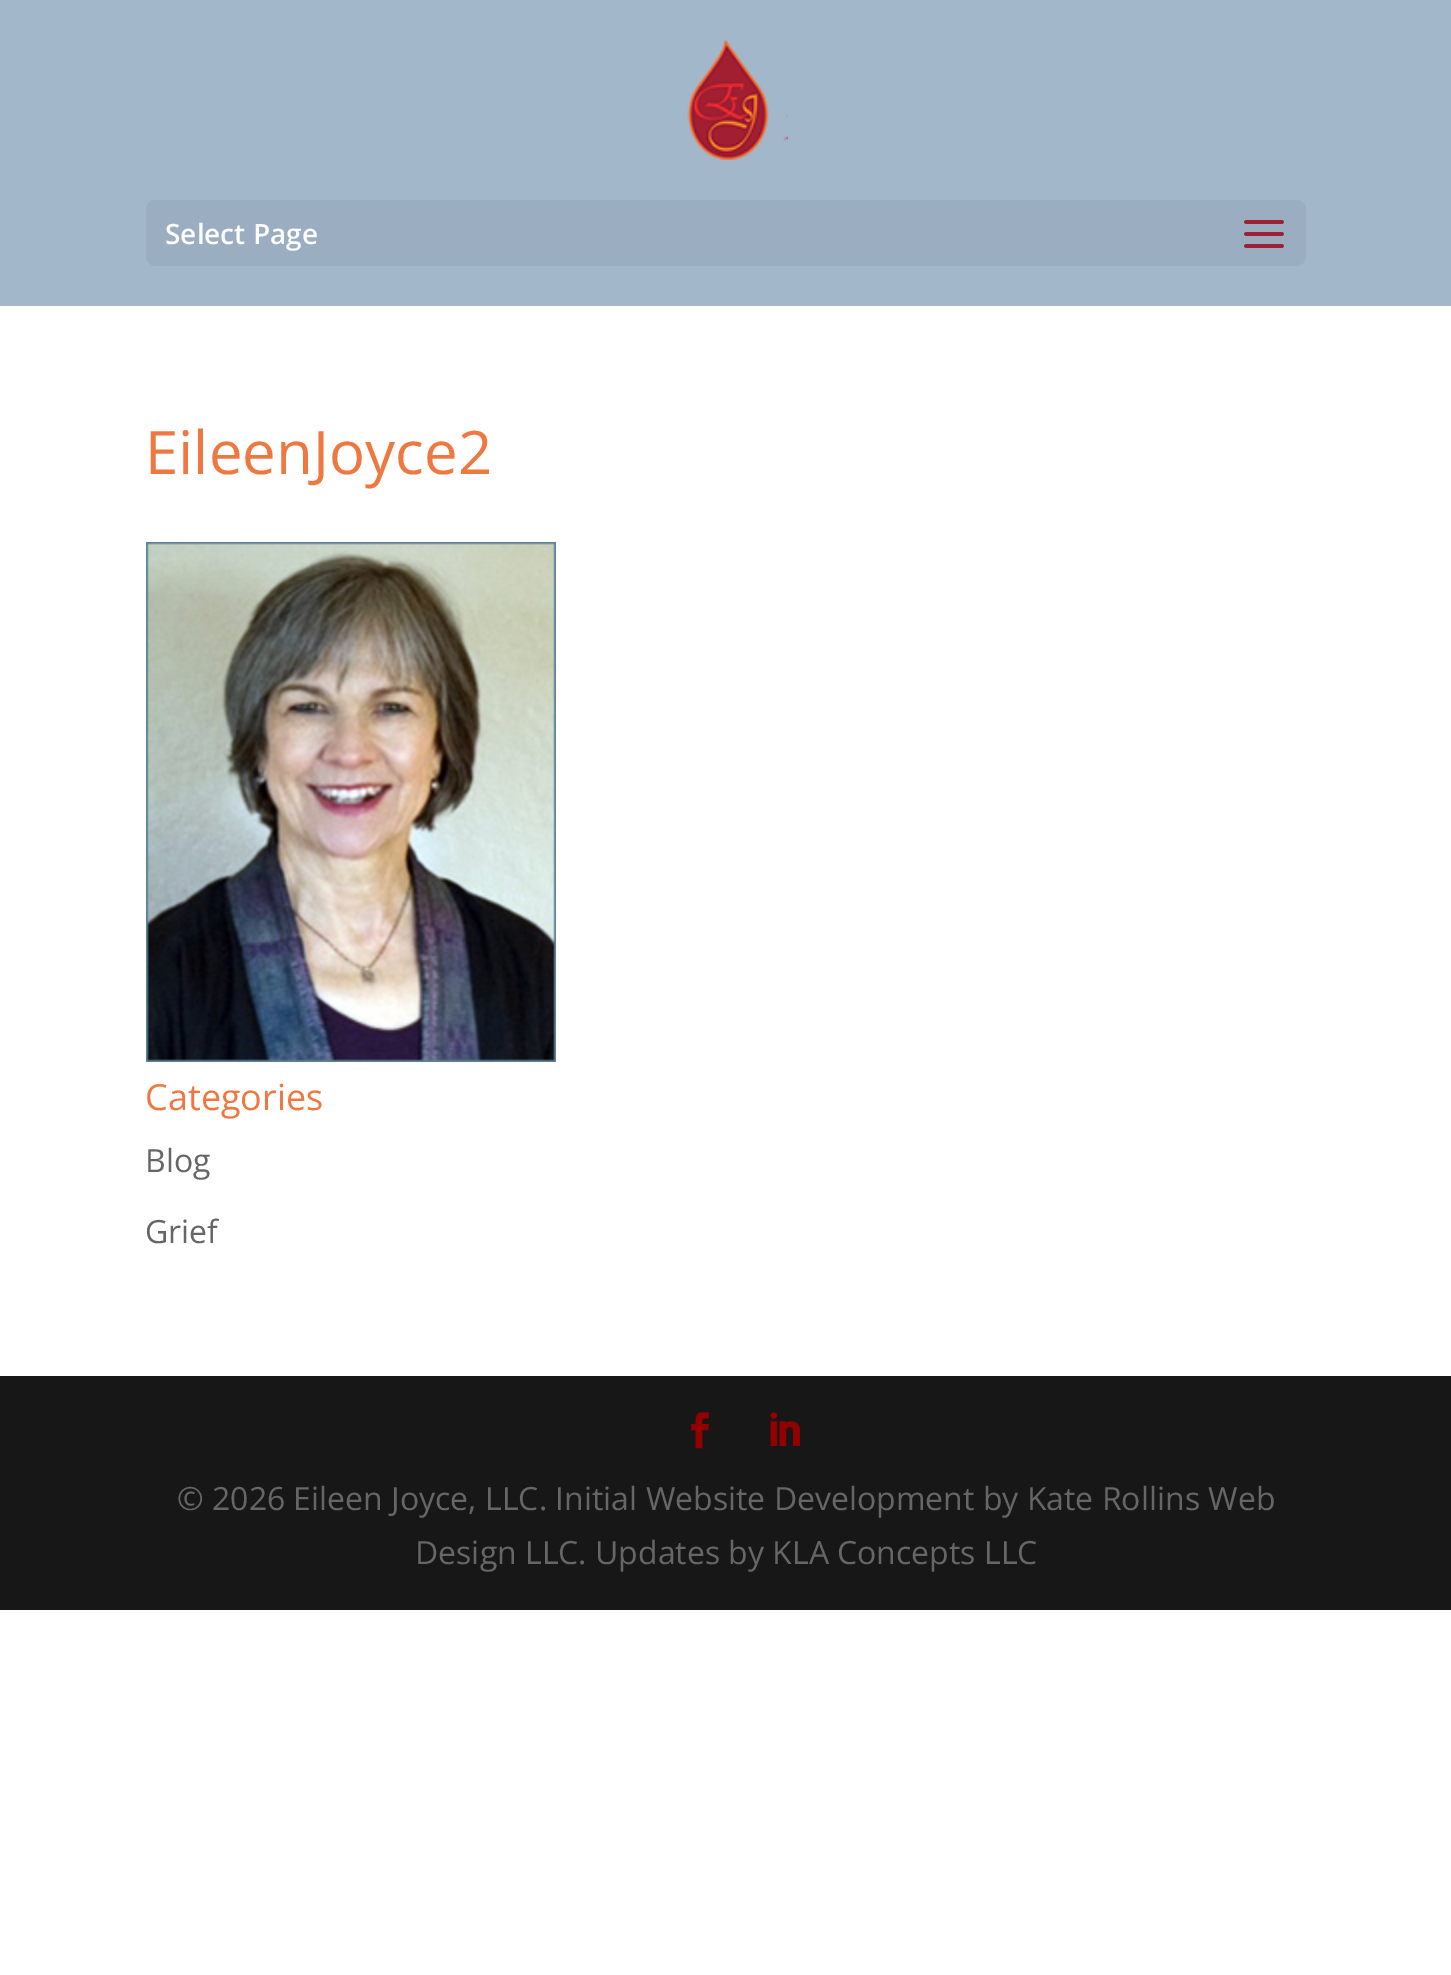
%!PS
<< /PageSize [1451 1975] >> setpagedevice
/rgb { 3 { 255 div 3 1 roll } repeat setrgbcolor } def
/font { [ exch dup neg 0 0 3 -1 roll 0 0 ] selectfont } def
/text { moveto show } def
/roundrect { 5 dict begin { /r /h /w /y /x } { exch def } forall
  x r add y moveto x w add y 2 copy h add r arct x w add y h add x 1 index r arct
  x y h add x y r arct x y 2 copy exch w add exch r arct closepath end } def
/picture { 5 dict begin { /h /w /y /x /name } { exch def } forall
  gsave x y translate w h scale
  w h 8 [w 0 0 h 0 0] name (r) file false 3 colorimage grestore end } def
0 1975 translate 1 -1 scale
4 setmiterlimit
255 255 255 rgb
0 0 1451 1975 rectfill
163 183 203 rgb
0 0 1451 306 rectfill
(img_01.rgb) 687 40 101 120 picture
155 174 193 rgb
146 200 1160 66 10 roundrect fill
(img_02.rgb) 1244 220 40 28 picture
(img_03.rgb) 146 542 410 520 picture
23 23 23 rgb
0 1376 1451 234 rectfill
(img_04.rgb) 691 1412 19 37 picture
(img_05.rgb) 770 1412 31 34 picture
/OpenSans-SemiBold 28 font
253 253 254 rgb
(Select Page) 165 244 text
/OpenSans-Regular 60 font
239 120 64 rgb
(EileenJoyce2) 145 474 text
/OpenSans-Regular 36 font
(Categories) 145 1110 text
/OpenSans-Regular 32 font
102 102 102 rgb
(Blog) 145 1172 text
(Grief) 145 1243 text
(© 2026 Eileen Joyce, LLC. Initial Website Development by Kate Rollins Web) 177 1510 text
(Design LLC. Updates by KLA Concepts LLC) 415 1564 text
showpage
